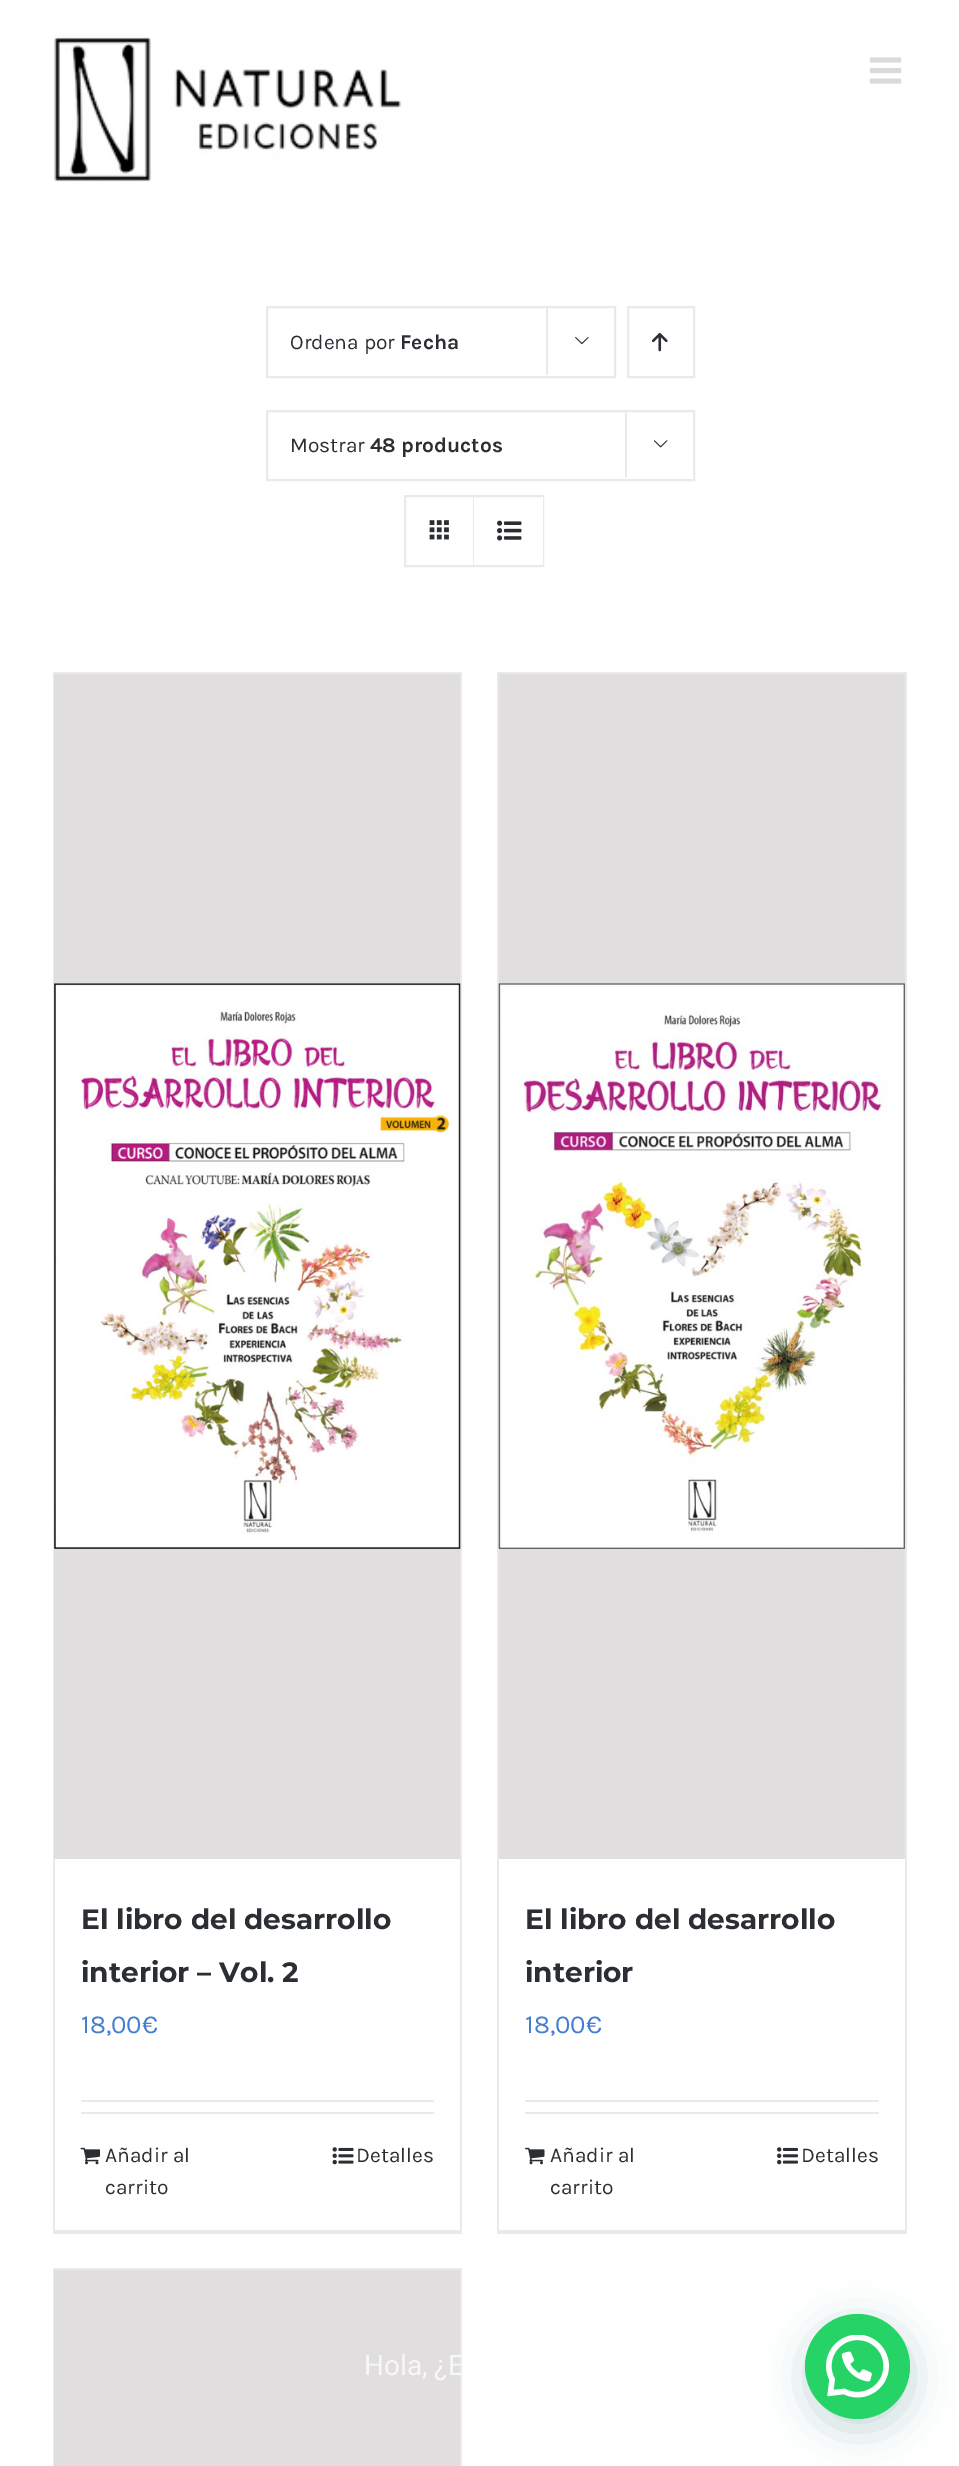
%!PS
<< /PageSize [959 2466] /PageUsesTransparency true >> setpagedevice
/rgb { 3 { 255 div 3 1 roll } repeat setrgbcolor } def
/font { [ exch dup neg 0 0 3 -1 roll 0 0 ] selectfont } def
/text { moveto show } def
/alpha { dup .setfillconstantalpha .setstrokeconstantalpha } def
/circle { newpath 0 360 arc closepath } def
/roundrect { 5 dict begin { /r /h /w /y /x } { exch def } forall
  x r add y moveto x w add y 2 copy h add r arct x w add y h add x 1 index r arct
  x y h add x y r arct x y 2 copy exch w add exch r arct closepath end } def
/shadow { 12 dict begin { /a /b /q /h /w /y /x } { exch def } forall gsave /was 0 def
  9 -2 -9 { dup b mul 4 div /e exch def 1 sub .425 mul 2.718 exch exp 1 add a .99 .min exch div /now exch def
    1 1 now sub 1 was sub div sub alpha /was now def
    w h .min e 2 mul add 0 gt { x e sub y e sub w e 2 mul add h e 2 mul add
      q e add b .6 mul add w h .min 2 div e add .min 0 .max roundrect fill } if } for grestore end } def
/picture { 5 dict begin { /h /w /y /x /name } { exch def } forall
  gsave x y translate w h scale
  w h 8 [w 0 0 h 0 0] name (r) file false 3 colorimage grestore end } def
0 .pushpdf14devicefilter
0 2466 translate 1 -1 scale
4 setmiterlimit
255 255 255 rgb
0 0 959 2466 rectfill
(img_01.rgb) 53 36 349 146 picture
(img_02.rgb) 869 57 33 27 picture
234 234 234 rgb
2 setlinewidth
267 307 348 70 rectstroke
546 306 2 69 rectfill
(img_03.rgb) 575 337 14 8 picture
628 307 66 70 rectstroke
(img_04.rgb) 651 333 17 19 picture
267 411 427 69 rectstroke
625 410 2 68 rectfill
(img_05.rgb) 653 440 15 8 picture
405 496 138 70 rectstroke
473 497 1 68 rectfill
(img_06.rgb) 429 520 20 20 picture
255 255 255 rgb
542 497 1 68 rectfill
(img_07.rgb) 497 520 25 21 picture
234 234 234 rgb
53 672 409 2 rectfill
460 672 2 1561 rectfill
53 2230 409 4 rectfill
53 672 2 1561 rectfill
224 222 222 rgb
54 674 406 1185 rectfill
(img_08.rgb) 54 983 407 566 picture
234 234 234 rgb
81 2100 353 2 rectfill
81 2112 353 2 rectfill
(img_09.rgb) 80 2147 20 18 picture
(img_10.rgb) 332 2147 22 18 picture
497 672 410 2 rectfill
905 672 2 1561 rectfill
497 2230 410 4 rectfill
497 672 2 1561 rectfill
224 222 222 rgb
499 674 406 1185 rectfill
(img_11.rgb) 498 983 407 566 picture
234 234 234 rgb
525 2100 354 2 rectfill
525 2112 354 2 rectfill
(img_12.rgb) 525 2147 20 18 picture
(img_13.rgb) 777 2147 21 18 picture
53 2268 409 2 rectfill
460 2268 2 198 rectfill
53 2268 2 198 rectfill
224 222 222 rgb
54 2270 406 196 rectfill
7 94 84 rgb
807 2324 105 105 52.5 21 0.24 shadow
37 211 102 rgb
857.5 2366.5 52.5 circle fill
(img_14.rgb) 826 2335 63 63 picture
gsave
291 308 232 68 rectclip
/Karla-Regular 21 font
43 46 50 rgb
(Ordena por) 290 349 text
grestore
/Karla-Bold 21 font
43 46 50 rgb
(Fecha) 400 349 text
/Karla-Regular 21 font
(Mostrar) 290 452 text
/Karla-Bold 21 font
(48 productos) 370 452 text
/Montserrat-Bold 28 font
(El libro del desarrollo) 81 1929 text
(interior – Vol. 2) 81 1982 text
/Karla-Regular 26 font
66 126 209 rgb
(18,00€) 81 2033 text
/Karla-Regular 21 font
43 46 50 rgb
(Añadir al) 105 2162 text
(carrito) 105 2194 text
(Detalles) 356 2162 text
/Montserrat-Bold 28 font
(El libro del desarrollo) 525 1929 text
(interior) 525 1982 text
/Karla-Regular 26 font
66 126 209 rgb
(18,00€) 525 2033 text
/Karla-Regular 21 font
43 46 50 rgb
(Añadir al) 550 2162 text
(carrito) 550 2194 text
(Detalles) 801 2162 text
/Roboto-Regular 28 font
248 247 247 rgb
(Hola, ¿E) 364 2375 text
.poppdf14devicefilter showpage
